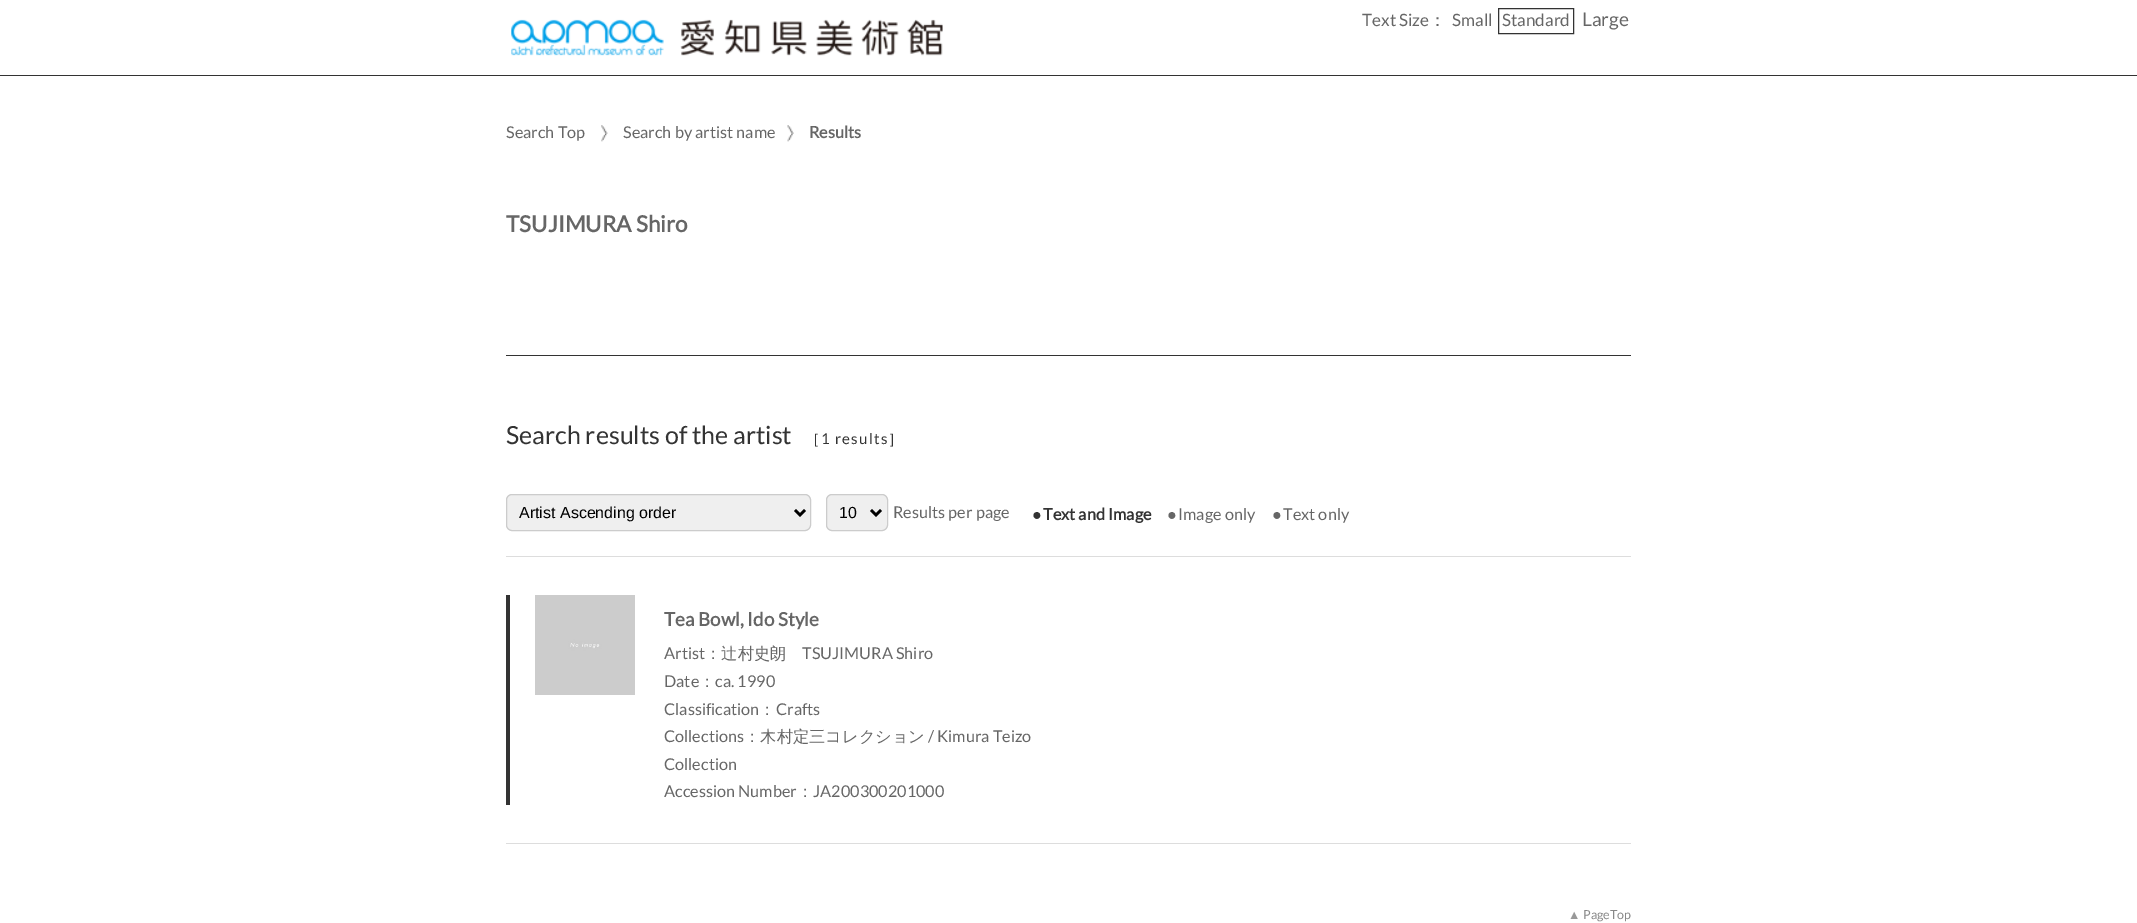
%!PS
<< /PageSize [2137 923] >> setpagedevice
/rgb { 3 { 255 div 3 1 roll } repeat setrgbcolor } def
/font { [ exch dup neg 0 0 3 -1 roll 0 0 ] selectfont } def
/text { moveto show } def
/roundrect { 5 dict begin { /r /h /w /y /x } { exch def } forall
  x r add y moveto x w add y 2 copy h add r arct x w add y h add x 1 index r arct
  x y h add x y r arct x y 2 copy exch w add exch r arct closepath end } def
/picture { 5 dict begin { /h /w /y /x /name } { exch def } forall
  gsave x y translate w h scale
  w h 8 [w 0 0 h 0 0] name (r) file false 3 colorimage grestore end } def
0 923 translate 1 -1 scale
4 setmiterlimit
255 255 255 rgb
0 0 2137 923 rectfill
(img_01.rgb) 511 19 432 37 picture
51 51 51 rgb
1498.5 8.5 75 25 rectstroke
0 75 2137 1 rectfill
(img_02.rgb) 601 125 7 17 picture
(img_03.rgb) 787 125 7 17 picture
506 355 1125 1 rectfill
239 239 239 rgb
506.5 494.5 304 36 5.5 roundrect gsave fill grestore
204 204 204 rgb
stroke
0 0 0 rgb
2.5 setlinewidth
795 510 moveto 5 5 rlineto 5 -5 rlineto stroke
239 239 239 rgb
826.5 494.5 61 36 5.5 roundrect gsave fill grestore
204 204 204 rgb
1 setlinewidth
stroke
0 0 0 rgb
2.5 setlinewidth
871 510 moveto 5 5 rlineto 5 -5 rlineto stroke
221 221 221 rgb
506 556 1125 1 rectfill
506 843 1125 1 rectfill
51 51 51 rgb
506 595 4 210 rectfill
(img_04.rgb) 535 595 100 100 picture
/Lato-Regular 17 font
102 102 102 rgb
(Text Size) 1362 26 text
/WenQuanYiZenHei-Medium 17 font
(：) 1429 26 text
/Lato-Regular 17 font
(Small) 1452 26 text
(Standard) 1502 26 text
/Lato-Regular 19 font
(Large) 1582 26 text
/Lato-Regular 16.25 font
(Search Top) 506 138 text
(Search by artist name) 623 138 text
/Lato-Bold 16.25 font
(Results) 809 138 text
/Lato-Bold 22.5 font
(TSUJIMURA Shiro) 506 232 text
/Lato-Regular 25 font
51 51 51 rgb
(Search results of the artist) 506 444 text
/WenQuanYiZenHei-Medium 15 font
805 444 moveto 1.25 0 (［) ashow
/Lato-Regular 15 font
821 444 moveto 1.25 0 (1 results) ashow
/WenQuanYiZenHei-Medium 15 font
888 444 moveto 1.25 0 (］) ashow
/LiberationSans-Regular 16 font
0 0 0 rgb
(Artist Ascending order) 519 518 text
(10) 839 518 text
/Lato-Regular 16.25 font
102 102 102 rgb
(Results per page) 893 518 text
/LiberationSans-Bold 16.25 font
51 51 51 rgb
(●) 1032 520 text
/Lato-Bold 16.25 font
(Text and Image) 1043 520 text
/LiberationSans-Regular 16.25 font
102 102 102 rgb
(●) 1167 520 text
/Lato-Regular 16.25 font
(Image only) 1178 520 text
/LiberationSans-Regular 16.25 font
(●) 1272 520 text
/Lato-Regular 16.25 font
(Text only) 1283 520 text
/Lato-Bold 18.75 font
(Tea Bowl, Ido Style) 664 626 text
/Lato-Regular 16.25 font
(Artist) 664 659 text
/WenQuanYiZenHei-Medium 16.25 font
(：辻村史朗) 705 659 text
/Lato-Regular 16.25 font
(TSUJIMURA Shiro) 802 659 text
(Date) 664 687 text
/WenQuanYiZenHei-Medium 16.25 font
(：) 699 687 text
/Lato-Regular 16.25 font
(ca. 1990) 715 687 text
(Classification) 664 715 text
/WenQuanYiZenHei-Medium 16.25 font
(：) 759 715 text
/Lato-Regular 16.25 font
(Crafts) 776 715 text
(Collections) 664 742 text
/WenQuanYiZenHei-Medium 16.25 font
(：木村定三コレクション) 744 742 text
/Lato-Regular 16.25 font
(/ Kimura Teizo) 928 742 text
(Collection) 664 770 text
(Accession Number) 664 797 text
/WenQuanYiZenHei-Medium 16.25 font
(：) 797 797 text
/Lato-Regular 16.25 font
(JA200300201000) 813 797 text
/LiberationSans-Regular 12.5 font
153 153 153 rgb
(▲) 1568 919 text
/Lato-Regular 12.5 font
136 136 136 rgb
(PageTop) 1583 919 text
showpage
